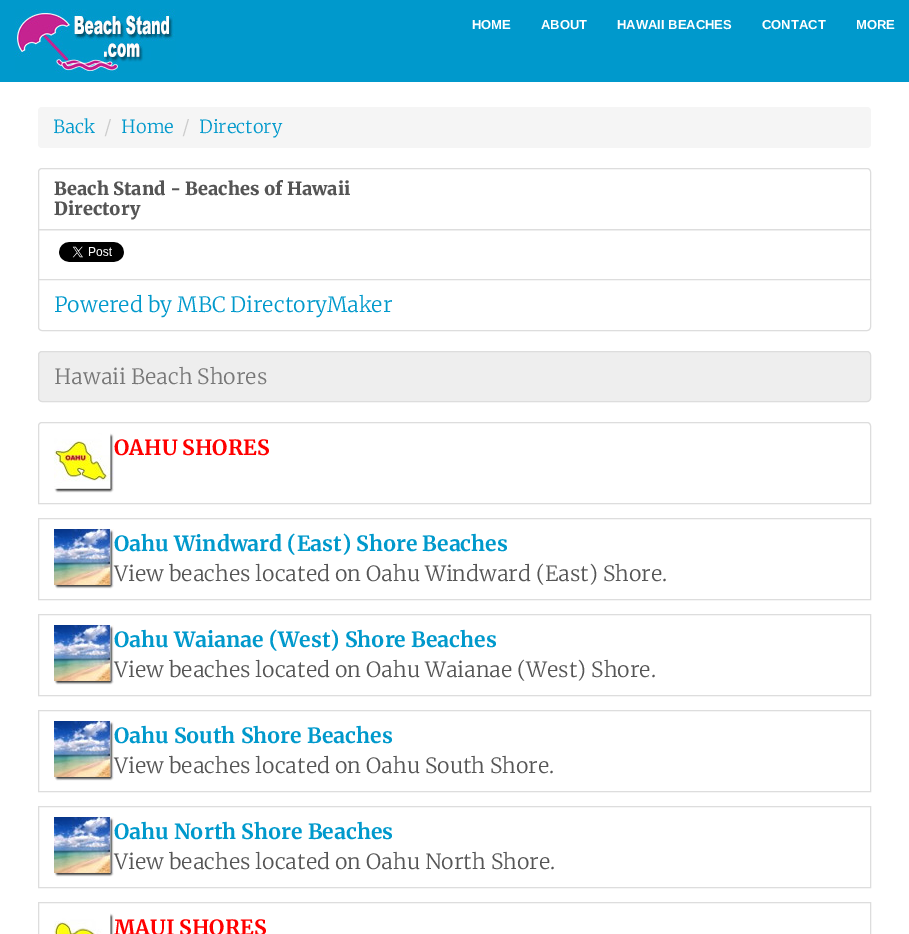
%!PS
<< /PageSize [909 934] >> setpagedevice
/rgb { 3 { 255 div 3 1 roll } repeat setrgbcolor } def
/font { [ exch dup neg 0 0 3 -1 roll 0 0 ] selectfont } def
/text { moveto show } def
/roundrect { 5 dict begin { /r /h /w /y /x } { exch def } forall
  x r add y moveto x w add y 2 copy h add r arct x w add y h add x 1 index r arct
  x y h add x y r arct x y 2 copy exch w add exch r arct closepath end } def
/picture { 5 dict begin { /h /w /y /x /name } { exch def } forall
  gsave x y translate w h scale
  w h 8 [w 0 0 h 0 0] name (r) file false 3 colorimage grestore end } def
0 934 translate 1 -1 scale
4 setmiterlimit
255 255 255 rgb
0 0 909 934 rectfill
0 153 204 rgb
0 0 909 82 rectfill
(img_01.rgb) 15 9 161 64 picture
245 245 245 rgb
38 107 833 41 4 roundrect fill
221 221 221 rgb
42 168.5 moveto 825 0 rlineto 2 0 3.5 1.5 3.5 3.5 rcurveto 0 57.5 rlineto -832 0 rlineto 0 -57.5 rlineto 0 -2 1.5 -3.5 3.5 -3.5 rcurveto closepath stroke
38.5 229.5 832 50 rectstroke
(img_02.rgb) 59 242 65 20 picture
255 255 255 rgb
38.5 279.5 moveto 832 0 rlineto 0 47.5 rlineto 0 2 -1.5 3.5 -3.5 3.5 rcurveto -825 0 rlineto -2 0 -3.5 -1.5 -3.5 -3.5 rcurveto closepath gsave fill grestore
221 221 221 rgb
stroke
238 238 238 rgb
38.5 351.5 832 50 3.5 roundrect gsave fill grestore
221 221 221 rgb
stroke
42 422.5 moveto 825 0 rlineto 2 0 3.5 1.5 3.5 3.5 rcurveto 0 77.5 rlineto -832 0 rlineto 0 -77.5 rlineto 0 -2 1.5 -3.5 3.5 -3.5 rcurveto closepath stroke
(img_03.rgb) 54 433 60 60 picture
38.5 518.5 832 81 rectstroke
(img_04.rgb) 54 529 60 60 picture
38.5 614.5 832 81 rectstroke
(img_04.rgb) 54 625 60 60 picture
38.5 710.5 832 81 rectstroke
(img_04.rgb) 54 721 60 60 picture
38.5 806.5 832 81 rectstroke
(img_04.rgb) 54 817 60 60 picture
38.5 902.5 832 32 rectstroke
(img_05.rgb) 54 913 60 21 picture
/LiberationSans-Bold 13 font
255 255 255 rgb
(HOME) 472 29 text
(ABOUT) 541 29 text
(HAWAII BEACHES) 617 29 text
(CONTACT) 762 29 text
(MORE) 856 29 text
/Merriweather-Light 18 font
0 153 204 rgb
(Back) 53 133 text
204 204 204 rgb
(/) 104 133 text
0 153 204 rgb
(Home) 121 133 text
204 204 204 rgb
(/) 182 133 text
0 153 204 rgb
(Directory) 199 133 text
/Merriweather-Black 18 font
85 85 85 rgb
(Beach Stand - Beaches of Hawaii) 54 195 text
(Directory) 54 215 text
/Merriweather-Light 21 font
0 153 204 rgb
(Powered by MBC DirectoryMaker) 54 312 text
119 119 119 rgb
(Hawaii Beach Shores) 54 384 text
/Merriweather-Bold 21 font
255 0 0 rgb
(OAHU SHORES) 114 455 text
0 153 204 rgb
(Oahu Windward \(East\) Shore Beaches) 114 551 text
/Merriweather-Light 21 font
85 85 85 rgb
(View beaches located on Oahu Windward \(East\) Shore.) 114 581 text
/Merriweather-Bold 21 font
0 153 204 rgb
(Oahu Waianae \(West\) Shore Beaches) 114 647 text
/Merriweather-Light 21 font
85 85 85 rgb
(View beaches located on Oahu Waianae \(West\) Shore.) 114 677 text
/Merriweather-Bold 21 font
0 153 204 rgb
(Oahu South Shore Beaches) 114 743 text
/Merriweather-Light 21 font
85 85 85 rgb
(View beaches located on Oahu South Shore.) 114 773 text
/Merriweather-Bold 21 font
0 153 204 rgb
(Oahu North Shore Beaches) 114 839 text
/Merriweather-Light 21 font
85 85 85 rgb
(View beaches located on Oahu North Shore.) 114 869 text
/Merriweather-Bold 21 font
255 0 0 rgb
(MAUI SHORES) 114 935 text
showpage
